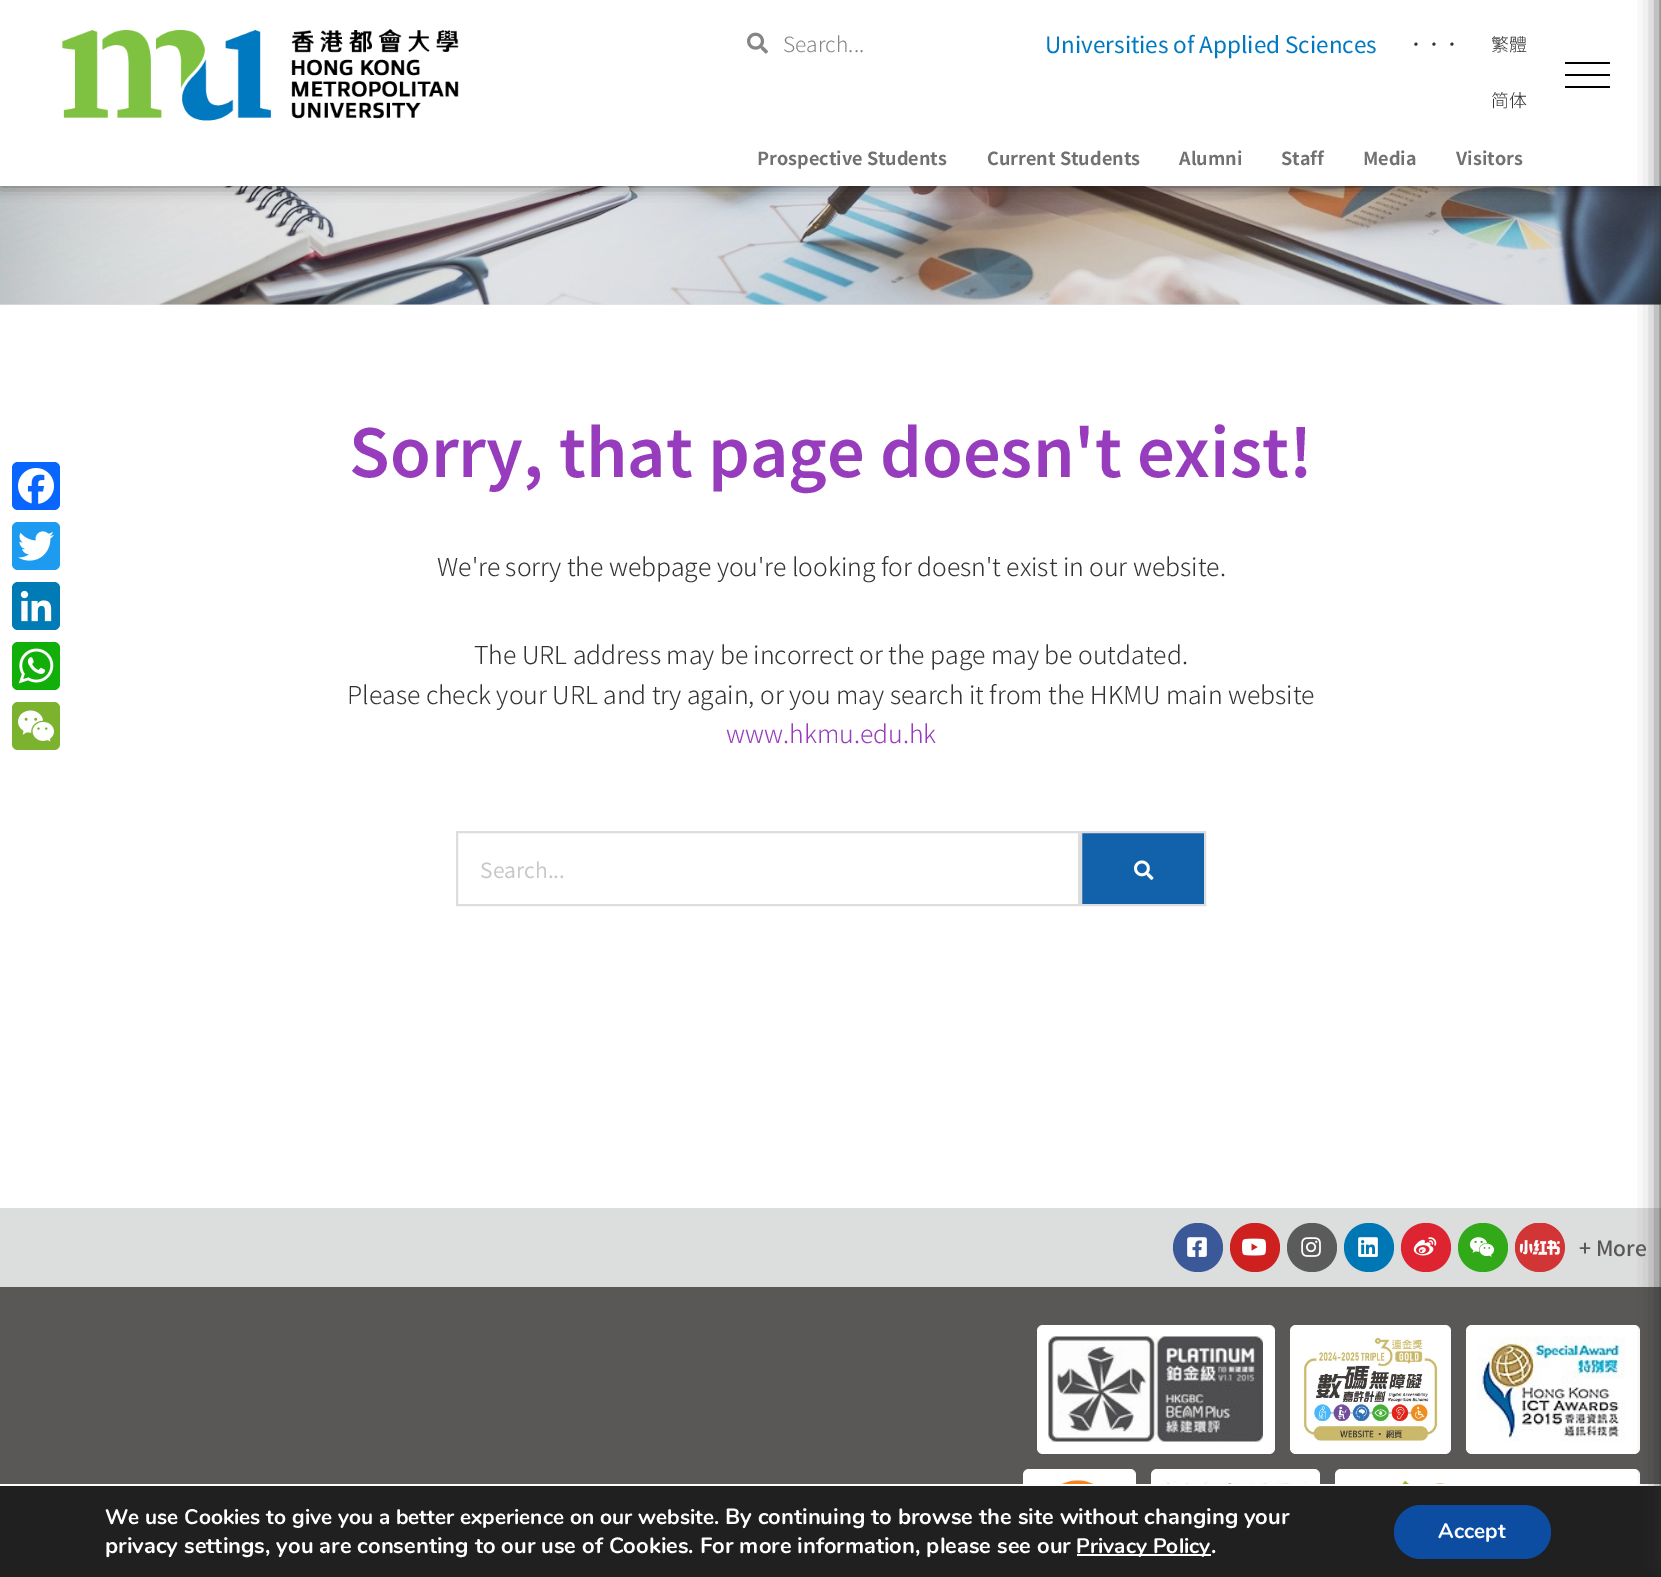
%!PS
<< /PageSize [1661 1577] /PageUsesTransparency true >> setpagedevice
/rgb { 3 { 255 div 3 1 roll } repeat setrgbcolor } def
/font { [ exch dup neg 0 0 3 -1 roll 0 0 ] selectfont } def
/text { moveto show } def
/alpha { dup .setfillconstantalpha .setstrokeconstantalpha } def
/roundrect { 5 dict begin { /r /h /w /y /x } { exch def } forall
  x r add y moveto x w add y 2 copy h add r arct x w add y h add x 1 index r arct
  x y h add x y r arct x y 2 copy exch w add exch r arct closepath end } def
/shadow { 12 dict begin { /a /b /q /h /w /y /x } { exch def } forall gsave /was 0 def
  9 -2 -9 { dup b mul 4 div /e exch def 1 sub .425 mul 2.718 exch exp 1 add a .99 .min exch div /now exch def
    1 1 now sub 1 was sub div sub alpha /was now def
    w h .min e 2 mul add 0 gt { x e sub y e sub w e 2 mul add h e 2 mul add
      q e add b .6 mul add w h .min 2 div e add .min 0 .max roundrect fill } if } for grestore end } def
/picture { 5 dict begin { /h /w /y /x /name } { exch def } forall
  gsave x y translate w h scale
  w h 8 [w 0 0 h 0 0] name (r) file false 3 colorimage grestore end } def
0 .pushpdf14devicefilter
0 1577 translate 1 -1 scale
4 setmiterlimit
255 255 255 rgb
0 0 1661 1577 rectfill
231 231 231 rgb
0 304 1661 1 rectfill
(img_03.rgb) 0 186 1661 119 picture
0 0 0 rgb
0 0 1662 186 0 7.5 0.5 shadow
255 255 255 rgb
0 0 1661 186 rectfill
(img_01.rgb) 62 29 397 92 picture
(img_02.rgb) 747 32 21 22 picture
0 0 0 rgb
1565 74 45 2 rectfill
1565 62 45 2 rectfill
1565 86 45 2 rectfill
220 221 221 rgb
0 1208 1661 79 rectfill
89 88 87 rgb
0 1287 1661 197 rectfill
255 255 255 rgb
1466 1325 174 129 6 roundrect fill
1335 1469 305 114 6 roundrect fill
1023 1469 113 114 6 roundrect fill
1151 1469 169 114 6 roundrect fill
32 32 32 rgb
0 1486 1661 91 rectfill
45 45 45 rgb
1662 -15 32 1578 0 11 1 shadow
8 102 255 rgb
12 462 48 48 6 roundrect fill
(img_04.rgb) 18 468 36 36 picture
29 155 240 rgb
12 522 48 48 6 roundrect fill
(img_05.rgb) 18 531 36 30 picture
0 123 181 rgb
12 582 48 48 6 roundrect fill
(img_06.rgb) 20 590 32 32 picture
18 175 10 rgb
12 642 48 48 6 roundrect fill
(img_07.rgb) 18 648 36 36 picture
123 179 46 rgb
12 702 48 48 6 roundrect fill
(img_08.rgb) 18 710 36 32 picture
221 221 221 rgb
2 setlinewidth
457 832 622 73 rectstroke
17 98 171 rgb
1081 832 moveto 124 0 rlineto 0 73 rlineto -124 0 rlineto closepath gsave fill grestore
221 221 221 rgb
stroke
(img_09.rgb) 1134 860 20 20 picture
59 89 152 rgb
1173 1223 50 49 24.5 roundrect fill
(img_10.rgb) 1187 1237 20 20 picture
205 32 31 rgb
1230 1223 50 49 24.5 roundrect fill
(img_11.rgb) 1242 1238 24 18 picture
91 91 91 rgb
1287 1223 50 49 24.5 roundrect fill
(img_12.rgb) 1301 1237 20 20 picture
0 119 181 rgb
1344 1223 50 49 24.5 roundrect fill
(img_13.rgb) 1358 1237 20 20 picture
221 36 48 rgb
1401 1223 50 49 24.5 roundrect fill
(img_14.rgb) 1413 1237 24 19 picture
49 169 24 rgb
1458 1223 50 49 24.5 roundrect fill
(img_15.rgb) 1469 1237 26 20 picture
210 53 53 rgb
1515 1223 50 49 24.5 roundrect fill
(img_16.rgb) 1515 1223 50 49 picture
255 255 255 rgb
1037 1325 238 129 6 roundrect fill
(img_17.rgb) 1048 1336 215 106 picture
1290 1325 161 129 6 roundrect fill
(img_18.rgb) 1302 1336 136 106 picture
(img_19.rgb) 1477 1336 149 106 picture
(img_20.rgb) 1062 1480 32 4 picture
(img_21.rgb) 1162 1480 146 4 picture
(img_22.rgb) 1402 1480 43 4 picture
1077 1554 134 2 rectfill
12 77 162 rgb
1394 1505 157 54 27 roundrect fill
/NotoSansTC-Light 21 font
133 133 133 rgb
(Search...) 783 52 text
/NotoSansTC-Regular 22.5 font
0 121 193 rgb
(Universities of Applied Sciences) 1045 53 text
/NotoSansTC-Light 18 font
51 51 51 rgb
(···) 1407 51 text
(繁體) 1491 51 text
/NotoSansSC-Light 18 font
(简) 1491 107 text
/NotoSansTC-Light 18 font
(体) 1509 107 text
/NotoSansTC-Bold 18 font
114 113 113 rgb
(Prospective Students) 757 165 text
(Current Students) 987 165 text
(Alumni) 1179 165 text
(Staff) 1281 165 text
(Media) 1363 165 text
(Visitors) 1456 165 text
/NotoSansTC-SemiBold 66 font
150 60 189 rgb
(Sorry, that page doesn't exist!) 349 477 text
/NotoSansTC-Light 24.75 font
51 51 51 rgb
(We're sorry the webpage you're looking for doesn't exist in our website.) 437 576 text
(The URL address may be incorrect or the page may be outdated.) 474 664 text
(Please check your URL and try again, or you may search it from the HKMU main website) 347 704 text
150 60 189 rgb
(www.hkmu.edu.hk) 726 743 text
/NotoSansTC-Regular 21 font
200 200 200 rgb
(Search...) 480 878 text
/NotoSansTC-Medium 21 font
89 88 87 rgb
(+ More) 1579 1256 text
/Nunito-Bold 21 font
255 255 255 rgb
(We use Cookies to give you a better experience on our website.) 105 1524 text
/Nunito-Bold 22 font
(By continuing to browse the site without changing your) 725 1524 text
(privacy settings, you are consenting to our use of Cookies. For more information, please see our) 105 1553 text
/Nunito-Bold 21 font
(Privacy Policy) 1076 1553 text
/Nunito-Bold 22 font
(.) 1211 1553 text
/Nunito-Bold 21 font
(Accept) 1438 1538 text
.poppdf14devicefilter showpage
